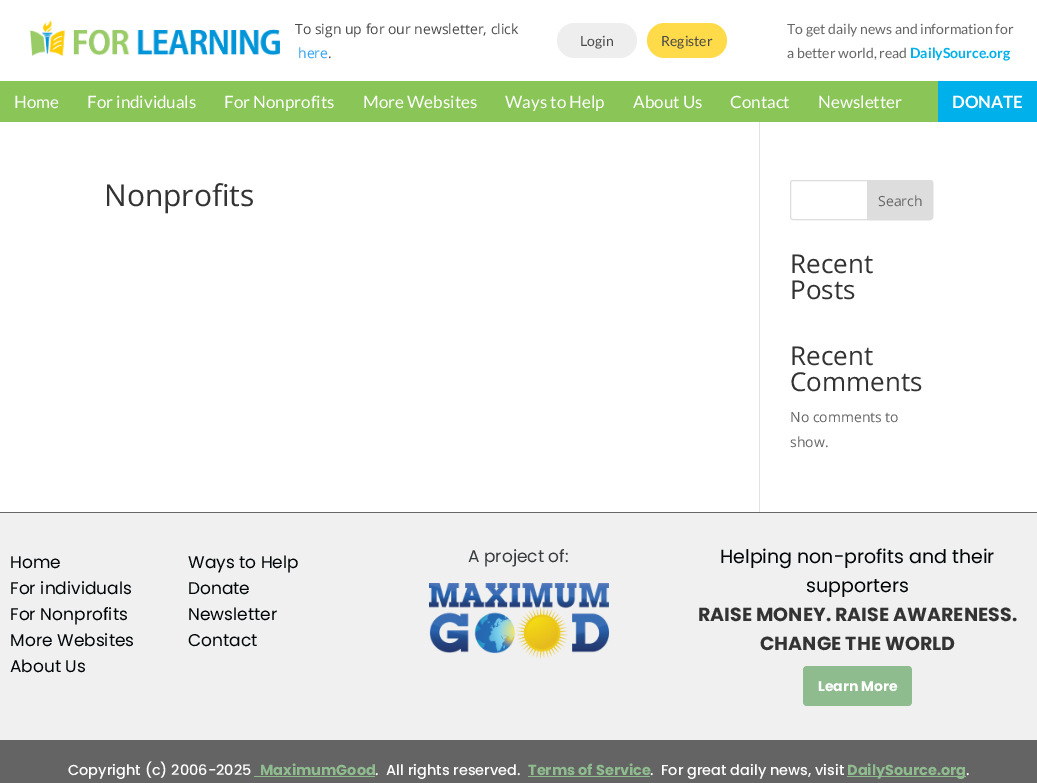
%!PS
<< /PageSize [1037 783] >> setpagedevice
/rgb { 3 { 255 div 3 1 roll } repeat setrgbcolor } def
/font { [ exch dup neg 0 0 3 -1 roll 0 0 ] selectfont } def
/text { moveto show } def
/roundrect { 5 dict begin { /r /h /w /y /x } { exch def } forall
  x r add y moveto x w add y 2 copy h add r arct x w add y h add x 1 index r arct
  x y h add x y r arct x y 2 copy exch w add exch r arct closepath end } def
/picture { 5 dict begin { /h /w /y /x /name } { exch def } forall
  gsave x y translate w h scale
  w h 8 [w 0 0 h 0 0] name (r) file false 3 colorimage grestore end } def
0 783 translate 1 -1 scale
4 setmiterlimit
255 255 255 rgb
0 0 1037 783 rectfill
(img_01.rgb) 30 20 250 36 picture
238 238 238 rgb
557 23 80 35 17.5 roundrect fill
255 219 74 rgb
647 23 80 35 17.5 roundrect fill
138 197 87 rgb
0 81 938 41 rectfill
0 176 234 rgb
938 81 99 41 rectfill
226 226 226 rgb
759 122 1 390 rectfill
221 221 221 rgb
790.5 180.5 142 39 2.5 roundrect stroke
867.5 180.5 moveto 62.5 0 rlineto 1.5 0 2.5 1 2.5 2.5 rcurveto 0 34 rlineto 0 1.5 -1 2.5 -2.5 2.5 rcurveto -62.5 0 rlineto closepath gsave fill grestore
stroke
240 240 240 rgb
0 513 1037 227 rectfill
103 103 103 rgb
0 512 1037 1 rectfill
(img_02.rgb) 429 583 180 76 picture
143 188 143 rgb
803 666 109 40 4 roundrect fill
100 100 100 rgb
0 740 1037 43 rectfill
143 188 143 rgb
254 776 121 1 rectfill
528 776 122 1 rectfill
847 776 119 1 rectfill
/OpenSans-Regular 14 font
76 75 75 rgb
(To sign up for our newsletter, click) 295 34 text
46 163 242 rgb
(here) 298 58 text
76 75 75 rgb
(.) 328 58 text
/Lato-Regular 14 font
(Login) 580 46 text
(Register) 661 46 text
102 102 102 rgb
(To get daily news and information for) 787 34 text
(a better world, read) 787 58 text
/Lato-Bold 14 font
0 176 234 rgb
(DailySource.org) 910 58 text
/Lato-Regular 17 font
255 255 255 rgb
(Home) 14 108 text
(For individuals) 87 108 text
(For Nonprofits) 224 108 text
(More Websites) 363 108 text
(Ways to Help) 505 108 text
(About Us) 633 108 text
(Contact) 730 108 text
(Newsletter) 818 108 text
/Lato-Bold 17 font
(DONATE) 952 108 text
/OpenSans-Regular 30 font
51 51 51 rgb
(Nonprofits) 104 206 text
/OpenSans-Regular 14 font
102 102 102 rgb
(Search) 878 206 text
/OpenSans-Regular 26 font
51 51 51 rgb
(Recent) 790 273 text
(Posts) 790 299 text
(Recent) 790 365 text
(Comments) 790 391 text
/OpenSans-Regular 14 font
102 102 102 rgb
(No comments to) 790 422 text
(show.) 790 447 text
/Poppins-Regular 17 font
0 5 7 rgb
(Home) 10 568 text
(For individuals) 10 594 text
(For Nonprofits) 10 620 text
(More Websites) 10 646 text
(About Us) 10 672 text
(Ways to Help) 188 568 text
(Donate) 188 594 text
(Newsletter) 188 620 text
(Contact) 188 646 text
55 59 61 rgb
(A project of:) 468 562 text
/Poppins-Regular 19 font
0 5 7 rgb
(Helping non-profits and their) 720 563 text
(supporters) 806 592 text
/Poppins-Bold 19 font
51 51 51 rgb
(RAISE MONEY. RAISE AWARENESS.) 698 621 text
(CHANGE THE WORLD) 760 650 text
/Poppins-Bold 14 font
255 255 255 rgb
(Learn More) 818 691 text
/Poppins-Medium 14.5 font
(Copyright \(c\) 2006-2025) 68 775 text
/Poppins-Bold 14.5 font
143 188 143 rgb
(MaximumGood) 260 775 text
/Poppins-Medium 14.5 font
255 255 255 rgb
(.  All rights reserved.) 375 775 text
/Poppins-Bold 14.5 font
143 188 143 rgb
(Terms of Service) 528 775 text
/Poppins-Medium 14.5 font
255 255 255 rgb
(.  For great daily news, visit) 650 775 text
/Poppins-Bold 14.5 font
143 188 143 rgb
(DailySource.org) 847 775 text
/Poppins-Medium 14.5 font
255 255 255 rgb
(.) 966 775 text
showpage
